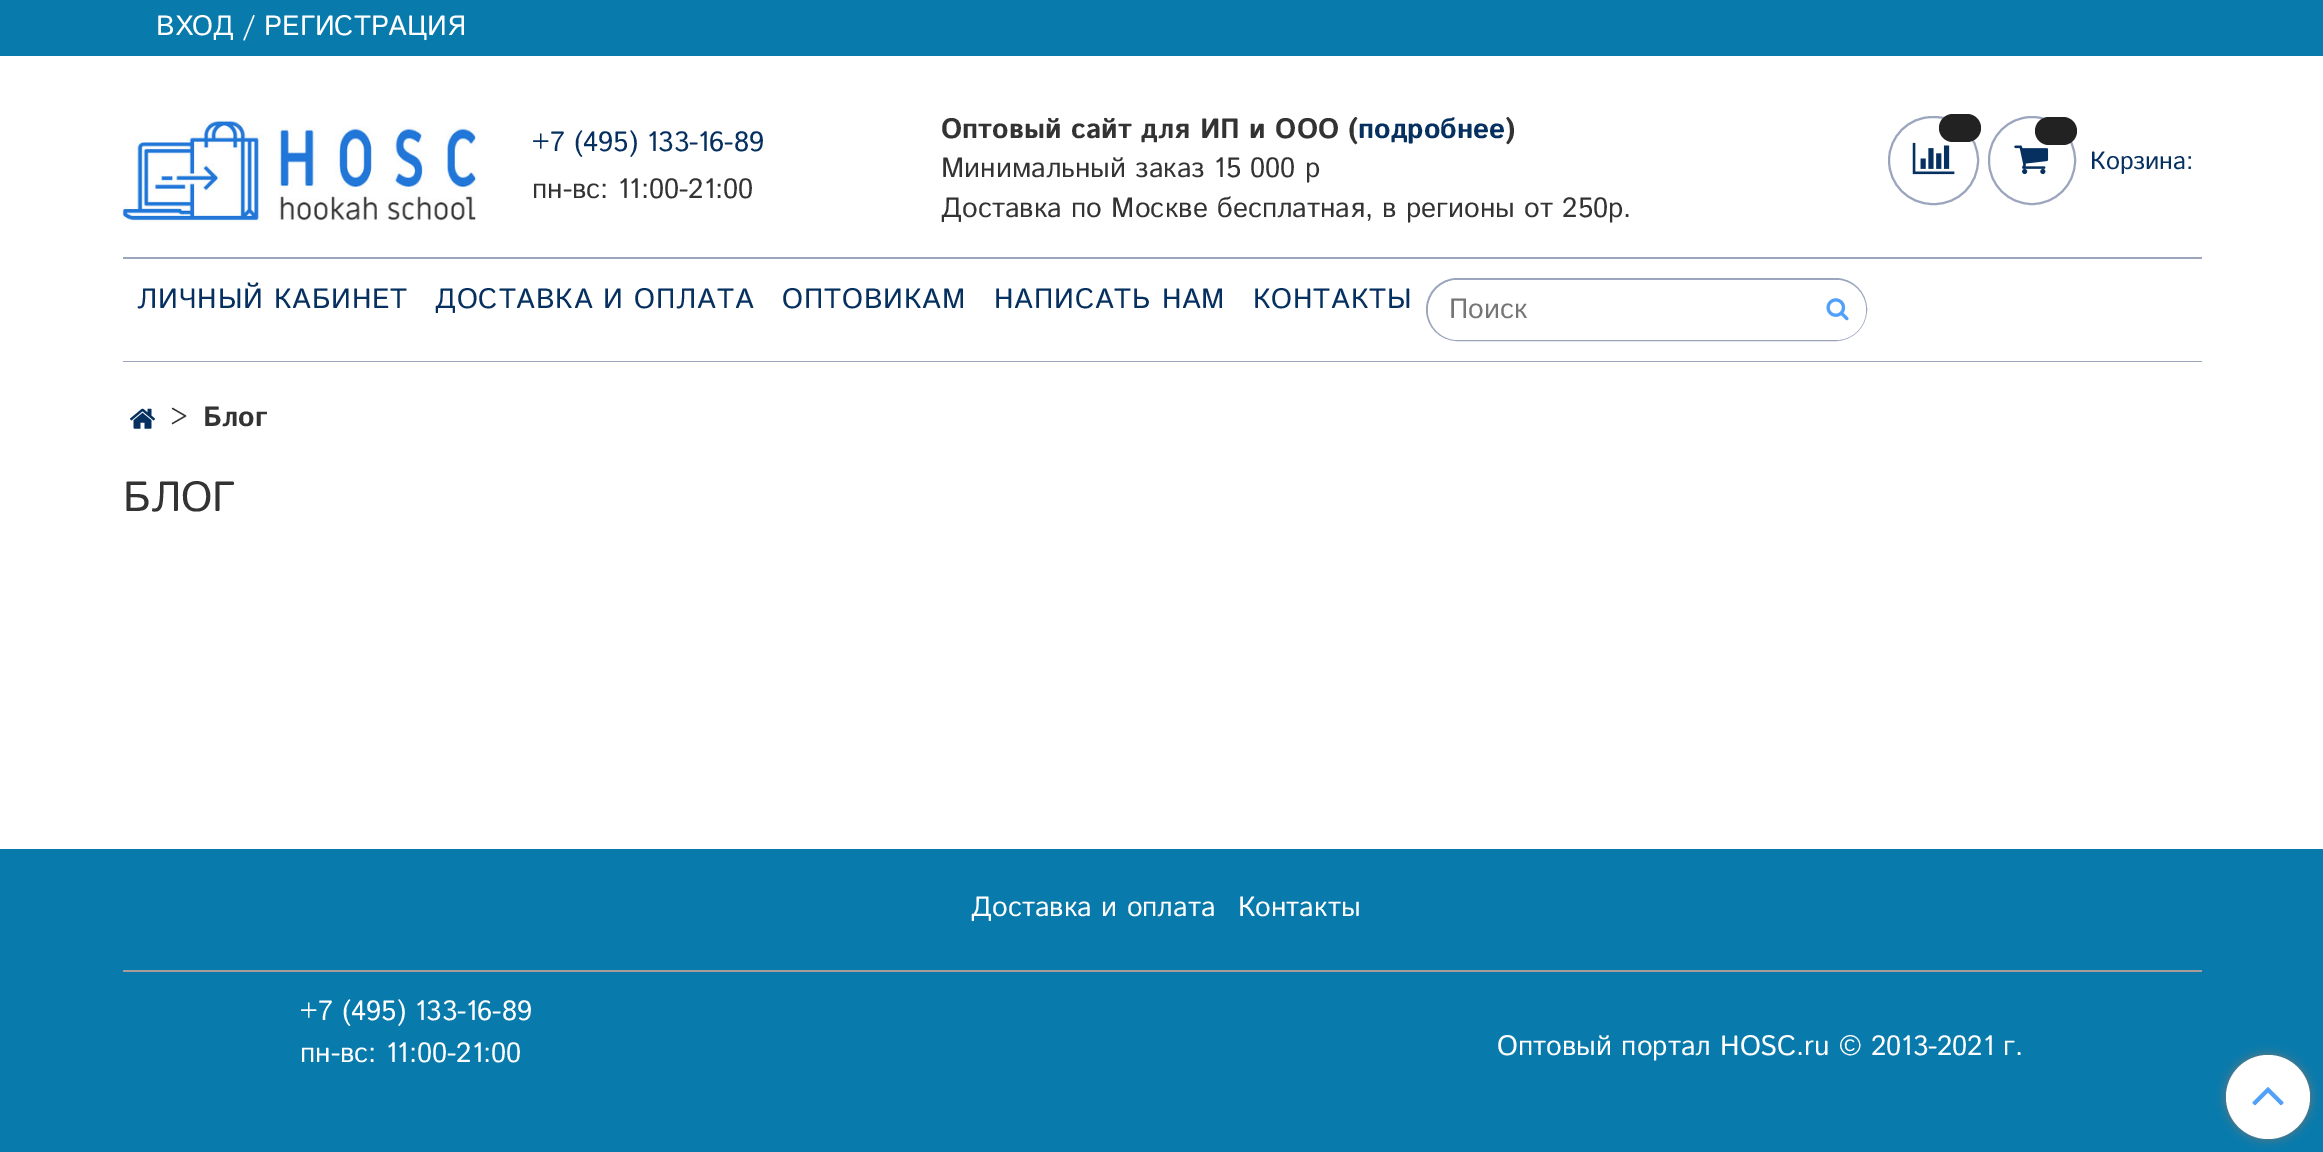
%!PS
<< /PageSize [2323 1152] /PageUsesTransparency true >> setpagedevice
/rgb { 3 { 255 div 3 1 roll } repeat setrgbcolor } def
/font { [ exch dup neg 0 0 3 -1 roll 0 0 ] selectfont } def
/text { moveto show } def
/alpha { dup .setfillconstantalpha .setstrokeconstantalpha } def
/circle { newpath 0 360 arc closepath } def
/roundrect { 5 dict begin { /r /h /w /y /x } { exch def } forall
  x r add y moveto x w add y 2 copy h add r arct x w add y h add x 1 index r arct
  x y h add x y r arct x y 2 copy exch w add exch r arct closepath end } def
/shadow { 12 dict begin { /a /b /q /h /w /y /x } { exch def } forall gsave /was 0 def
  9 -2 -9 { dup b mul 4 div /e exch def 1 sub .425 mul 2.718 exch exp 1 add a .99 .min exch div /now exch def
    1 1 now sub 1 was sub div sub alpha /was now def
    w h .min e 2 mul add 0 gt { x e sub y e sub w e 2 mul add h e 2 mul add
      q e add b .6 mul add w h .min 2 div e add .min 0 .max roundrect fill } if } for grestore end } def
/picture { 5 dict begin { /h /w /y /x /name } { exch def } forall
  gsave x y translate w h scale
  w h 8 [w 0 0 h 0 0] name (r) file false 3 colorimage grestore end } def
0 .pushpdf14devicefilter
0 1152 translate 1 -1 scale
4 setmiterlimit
255 255 255 rgb
0 0 2323 1152 rectfill
9 122 172 rgb
0 0 2323 56 rectfill
(img_01.rgb) 122 120 354 101 picture
155 165 189 rgb
2 setlinewidth
1889 117 89 87 43.5 roundrect stroke
34 34 34 rgb
1939 114 42 28 14 roundrect fill
(img_02.rgb) 1912 142 43 33 picture
155 165 189 rgb
1989 117 86 87 43 roundrect stroke
34 34 34 rgb
2035 117 42 28 14 roundrect fill
(img_03.rgb) 2014 145 35 30 picture
155 165 189 rgb
123 257 2079 2 rectfill
123 361 2079 1 rectfill
1427 279 439 61 30.5 roundrect stroke
255 255 255 rgb
1458 280 moveto 352 0 rlineto 0 60 rlineto -352 0 rlineto -16.5 0 -30 -13.5 -30 -30 rcurveto 0 -16.5 13.5 -30 30 -30 rcurveto closepath fill
1810 280 moveto 26 0 rlineto 16.5 0 30 13.5 30 30 rcurveto 0 16.5 -13.5 30 -30 30 rcurveto -26 0 rlineto closepath fill
(img_04.rgb) 1826 298 23 23 picture
(img_05.rgb) 130 408 25 21 picture
9 122 172 rgb
0 849 2323 303 rectfill
168 155 155 rgb
123 970 2079 2 rectfill
119 119 119 rgb
2226 1055 84 84 42 4.5 1 shadow
255 255 255 rgb
2268 1097 42 circle fill
(img_06.rgb) 2252 1087 32 19 picture
/IstokWeb-Regular 28 font
(ВХОД / РЕГИСТРАЦИЯ) 156 35 text
6 48 96 rgb
(+7 \(495\) 133-16-89) 532 151 text
51 51 51 rgb
(пн-вс: 11:00-21:00) 532 198 text
/IstokWeb-Bold 28 font
(Оптовый сайт для ИП и ООО \() 941 138 text
6 48 96 rgb
(подробнее) 1358 138 text
51 51 51 rgb
(\)) 1505 138 text
/IstokWeb-Regular 28 font
(Минимальный заказ 15 000 р) 941 177 text
(Доставка по Москве бесплатная, в регионы от 250р.) 941 217 text
/IstokWeb-Regular 25 font
6 48 96 rgb
(Корзина:) 2090 169 text
/IstokWeb-Regular 28 font
137 308 moveto 0.9 0 (ЛИЧНЫЙ КАБИНЕТ) ashow
435 308 moveto 0.9 0 (ДОСТАВКА И ОПЛАТА) ashow
782 308 moveto 0.9 0 (ОПТОВИКАМ) ashow
994 308 moveto 0.9 0 (НАПИСАТЬ НАМ) ashow
1253 308 moveto 0.9 0 (КОНТАКТЫ) ashow
117 117 117 rgb
(Поиск) 1449 318 text
51 51 51 rgb
(>) 170 426 text
/IstokWeb-Bold 28 font
(Блог) 203 426 text
/IstokWeb-Regular 42 font
(БЛОГ) 123 511 text
/IstokWeb-Regular 28 font
255 255 255 rgb
(Доставка и оплата) 971 916 text
(Контакты) 1238 916 text
(+7 \(495\) 133-16-89) 300 1020 text
(пн-вс: 11:00-21:00) 300 1062 text
(Оптовый портал HOSC.ru © 2013-2021 г.) 1497 1055 text
.poppdf14devicefilter showpage
